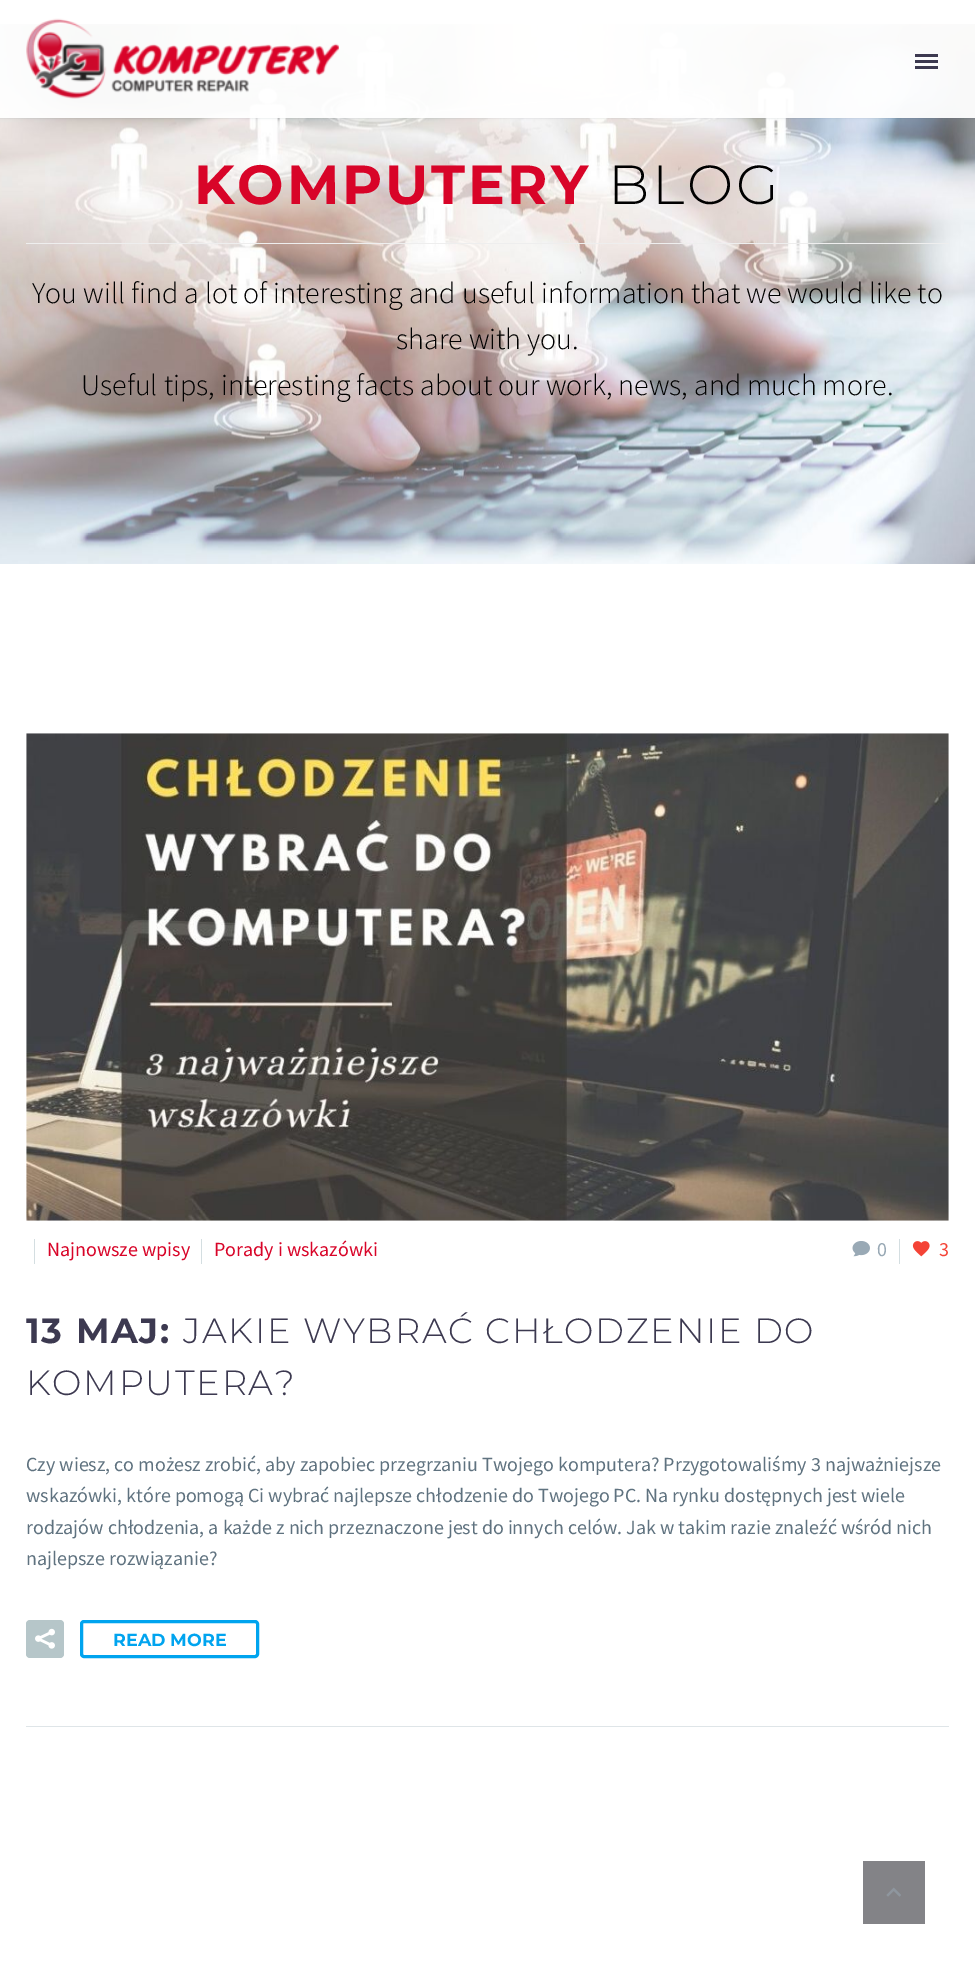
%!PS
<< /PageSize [975 1967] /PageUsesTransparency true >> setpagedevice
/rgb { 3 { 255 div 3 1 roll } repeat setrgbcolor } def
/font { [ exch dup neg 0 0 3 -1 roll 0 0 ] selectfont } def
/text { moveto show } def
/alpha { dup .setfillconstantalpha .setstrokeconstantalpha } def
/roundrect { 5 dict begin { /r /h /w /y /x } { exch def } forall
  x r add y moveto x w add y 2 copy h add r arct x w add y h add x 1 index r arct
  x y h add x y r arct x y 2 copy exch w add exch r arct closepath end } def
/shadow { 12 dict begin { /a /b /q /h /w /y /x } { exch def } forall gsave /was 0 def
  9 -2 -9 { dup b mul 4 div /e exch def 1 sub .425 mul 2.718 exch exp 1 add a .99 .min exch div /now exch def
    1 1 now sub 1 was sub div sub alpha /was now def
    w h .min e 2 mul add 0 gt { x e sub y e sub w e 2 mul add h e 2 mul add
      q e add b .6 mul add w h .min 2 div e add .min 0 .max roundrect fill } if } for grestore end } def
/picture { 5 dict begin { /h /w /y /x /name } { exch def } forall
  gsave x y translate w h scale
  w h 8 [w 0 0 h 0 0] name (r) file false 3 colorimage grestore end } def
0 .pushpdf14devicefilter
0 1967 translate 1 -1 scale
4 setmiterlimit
255 255 255 rgb
0 0 975 1967 rectfill
(img_02.rgb) 0 24 975 540 picture
gsave
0 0 moveto 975 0 rlineto 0 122 rlineto -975 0 rlineto closepath 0 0 moveto 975 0 rlineto 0 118 rlineto -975 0 rlineto closepath eoclip newpath
56 69 84 rgb
0 0 975 118 0 1 0.2 shadow
grestore
0.95 alpha
0 24 975 94 rectfill
1 alpha
(img_01.rgb) 26 18 313 81 picture
60 57 80 rgb
915 54 23 3 rectfill
915 60 23 3 rectfill
915 66 23 3 rectfill
238 238 238 rgb
26 243 923 1 rectfill
223 229 232 rgb
26 1726 923 1 rectfill
(img_03.rgb) 26 733 923 488 picture
212 222 225 rgb
34 1239 1 25 rectfill
201 1239 1 25 rectfill
(img_04.rgb) 852 1241 18 16 picture
899 1239 1 25 rectfill
(img_05.rgb) 912 1241 18 16 picture
182 198 201 rgb
26 1620 38 38 4 roundrect fill
(img_06.rgb) 35 1628 20 21 picture
0 164 239 rgb
3 setlinewidth
81.5 1621.5 176 35 2.5 roundrect stroke
131 131 135 rgb
863 1861 62 63 rectfill
(img_07.rgb) 886 1887 15 10 picture
/Montserrat-Bold 55 font
216 4 40 rgb
194 204 moveto 2.75 0 (KOMPUTERY) ashow
/Montserrat-Light 55 font
0 0 0 rgb
608 204 moveto 2.75 0 (BLOG) ashow
/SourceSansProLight-Light 30 font
(You will find a lot of interesting and useful information that we would like to) 32 303 text
(share with you.) 396 349 text
(Useful tips, interesting facts about our work, news, and much more.) 81 395 text
/SourceSansPro-Regular 20 font
216 4 40 rgb
(Najnowsze wpisy) 47 1256 text
(Porady i wskazówki) 214 1256 text
153 169 181 rgb
(0) 877 1256 text
244 67 54 rgb
(3) 939 1256 text
/Montserrat-Bold 35 font
60 57 80 rgb
26 1343 moveto 1.75 0 (13 MAJ:) ashow
/Montserrat-Light 35 font
183 1343 moveto 1.75 0 (JAKIE WYBRAĆ CHŁODZENIE DO) ashow
26 1395 moveto 1.75 0 (KOMPUTERA?) ashow
/SourceSansPro-Regular 20 font
95 114 127 rgb
(Czy wiesz, co możesz zrobić, aby zapobiec przegrzaniu Twojego komputera? Przygotowaliśmy 3 najważniejsze) 26 1471 text
(wskazówki, które pomogą Ci wybrać najlepsze chłodzenie do Twojego PC. Na rynku dostępnych jest wiele) 26 1502 text
(rodzajów chłodzenia, a każde z nich przeznaczone jest do innych celów. Jak w takim razie znaleźć wśród nich) 26 1534 text
(najlepsze rozwiązanie?) 26 1565 text
/Montserrat-Bold 17.5 font
0 164 239 rgb
(READ MORE) 113 1646 text
.poppdf14devicefilter showpage
